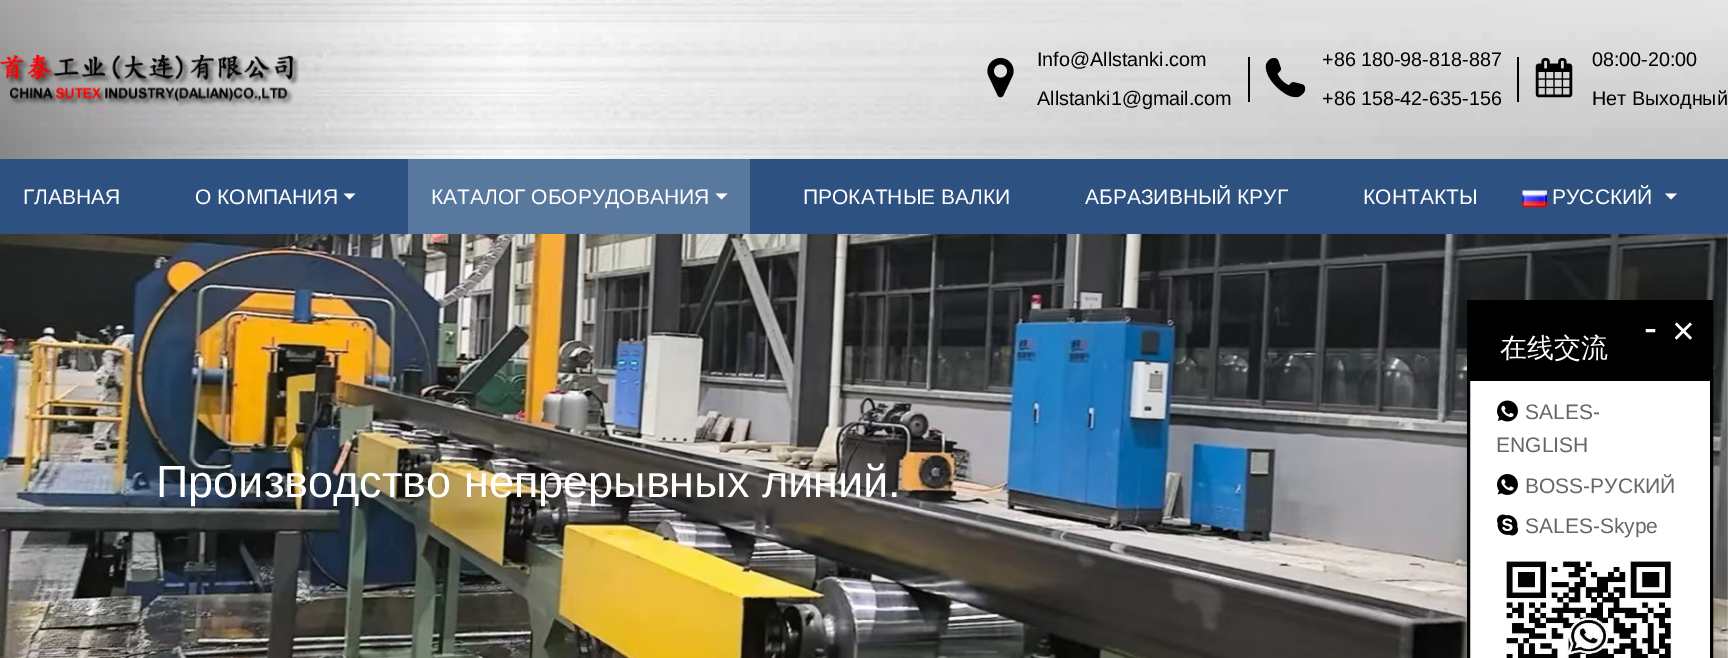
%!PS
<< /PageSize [1728 658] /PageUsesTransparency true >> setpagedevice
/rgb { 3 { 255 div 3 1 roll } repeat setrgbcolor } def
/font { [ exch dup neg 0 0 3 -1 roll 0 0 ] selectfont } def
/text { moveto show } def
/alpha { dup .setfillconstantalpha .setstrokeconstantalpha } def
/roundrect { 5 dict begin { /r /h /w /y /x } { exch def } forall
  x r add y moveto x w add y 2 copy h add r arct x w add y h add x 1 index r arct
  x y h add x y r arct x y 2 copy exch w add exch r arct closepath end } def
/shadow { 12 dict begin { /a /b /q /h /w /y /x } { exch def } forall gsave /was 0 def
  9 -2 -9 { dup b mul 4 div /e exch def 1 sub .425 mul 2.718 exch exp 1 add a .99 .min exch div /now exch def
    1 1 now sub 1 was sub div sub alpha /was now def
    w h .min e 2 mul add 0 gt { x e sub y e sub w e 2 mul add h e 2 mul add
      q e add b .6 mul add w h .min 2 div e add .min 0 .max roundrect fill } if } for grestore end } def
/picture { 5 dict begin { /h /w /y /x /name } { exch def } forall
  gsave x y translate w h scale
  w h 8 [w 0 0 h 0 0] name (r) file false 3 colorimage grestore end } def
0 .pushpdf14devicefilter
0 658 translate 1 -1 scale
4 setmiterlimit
255 255 255 rgb
0 0 1728 658 rectfill
(img_01.rgb) 0 0 1728 159 picture
(img_02.rgb) 0 54 299 53 picture
(img_03.rgb) 987 57 27 41 picture
0 0 0 rgb
1248 57 2 45 rectfill
(img_04.rgb) 1265 58 41 40 picture
1517 57 2 45 rectfill
(img_05.rgb) 1535 58 38 40 picture
45 81 128 rgb
0 159 1728 75 rectfill
255 255 255 rgb
343.5 193.5 moveto 12 0 rlineto -6 6 rlineto closepath fill
89 120 158 rgb
408 159 342 75 rectfill
255 255 255 rgb
715.5 193.5 moveto 12 0 rlineto -6 6 rlineto closepath fill
(img_06.rgb) 1522 190 25 17 picture
1665 193.5 moveto 12 0 rlineto -6 6 rlineto closepath fill
(img_07.rgb) 0 234 1728 424 picture
4 0 0 rgb
1467 308 246 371 0 7 0.17 shadow
255 255 255 rgb
1470 381 240 277 rectfill
0 0 0 rgb
3 setlinewidth
1468.5 301.5 243 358 rectstroke
1470 303 240 78 rectfill
(img_08.rgb) 1497 400 21 22 picture
(img_09.rgb) 1497 474 21 21 picture
(img_10.rgb) 1497 514 21 22 picture
(img_11.rgb) 1506 561 166 97 picture
/LiberationSans-Regular 19.75 font
(Info@Allstanki.com) 1037 66 text
(Allstanki1@gmail.com) 1037 105 text
(+86 180-98-818-887) 1322 66 text
(+86 158-42-635-156) 1322 105 text
(08:00-20:00) 1592 66 text
(Нет Выходный) 1592 105 text
/LiberationSans-Regular 21 font
255 255 255 rgb
(ГЛАВНАЯ) 23 204 text
(О КОМПАНИЯ) 195 204 text
(КАТАЛОГ ОБОРУДОВАНИЯ) 431 204 text
(ПРОКАТНЫЕ ВАЛКИ) 803 204 text
(АБРАЗИВНЫЙ КРУГ) 1085 204 text
(КОНТАКТЫ) 1363 204 text
(РУССКИЙ) 1552 204 text
/LiberationSans-Regular 45 font
(Производство непрерывных линий.) 156 497 text
/LiberationSans-Regular 39 font
(-) 1644 341 text
(×) 1672 344 text
/WenQuanYiZenHei-Medium 27 font
(在线交流) 1500 357 text
/LiberationSans-Regular 21 font
102 102 102 rgb
(SALES-) 1525 419 text
(ENGLISH) 1496 452 text
(BOSS-РУСКИЙ) 1525 493 text
(SALES-Skype) 1525 533 text
.poppdf14devicefilter showpage
